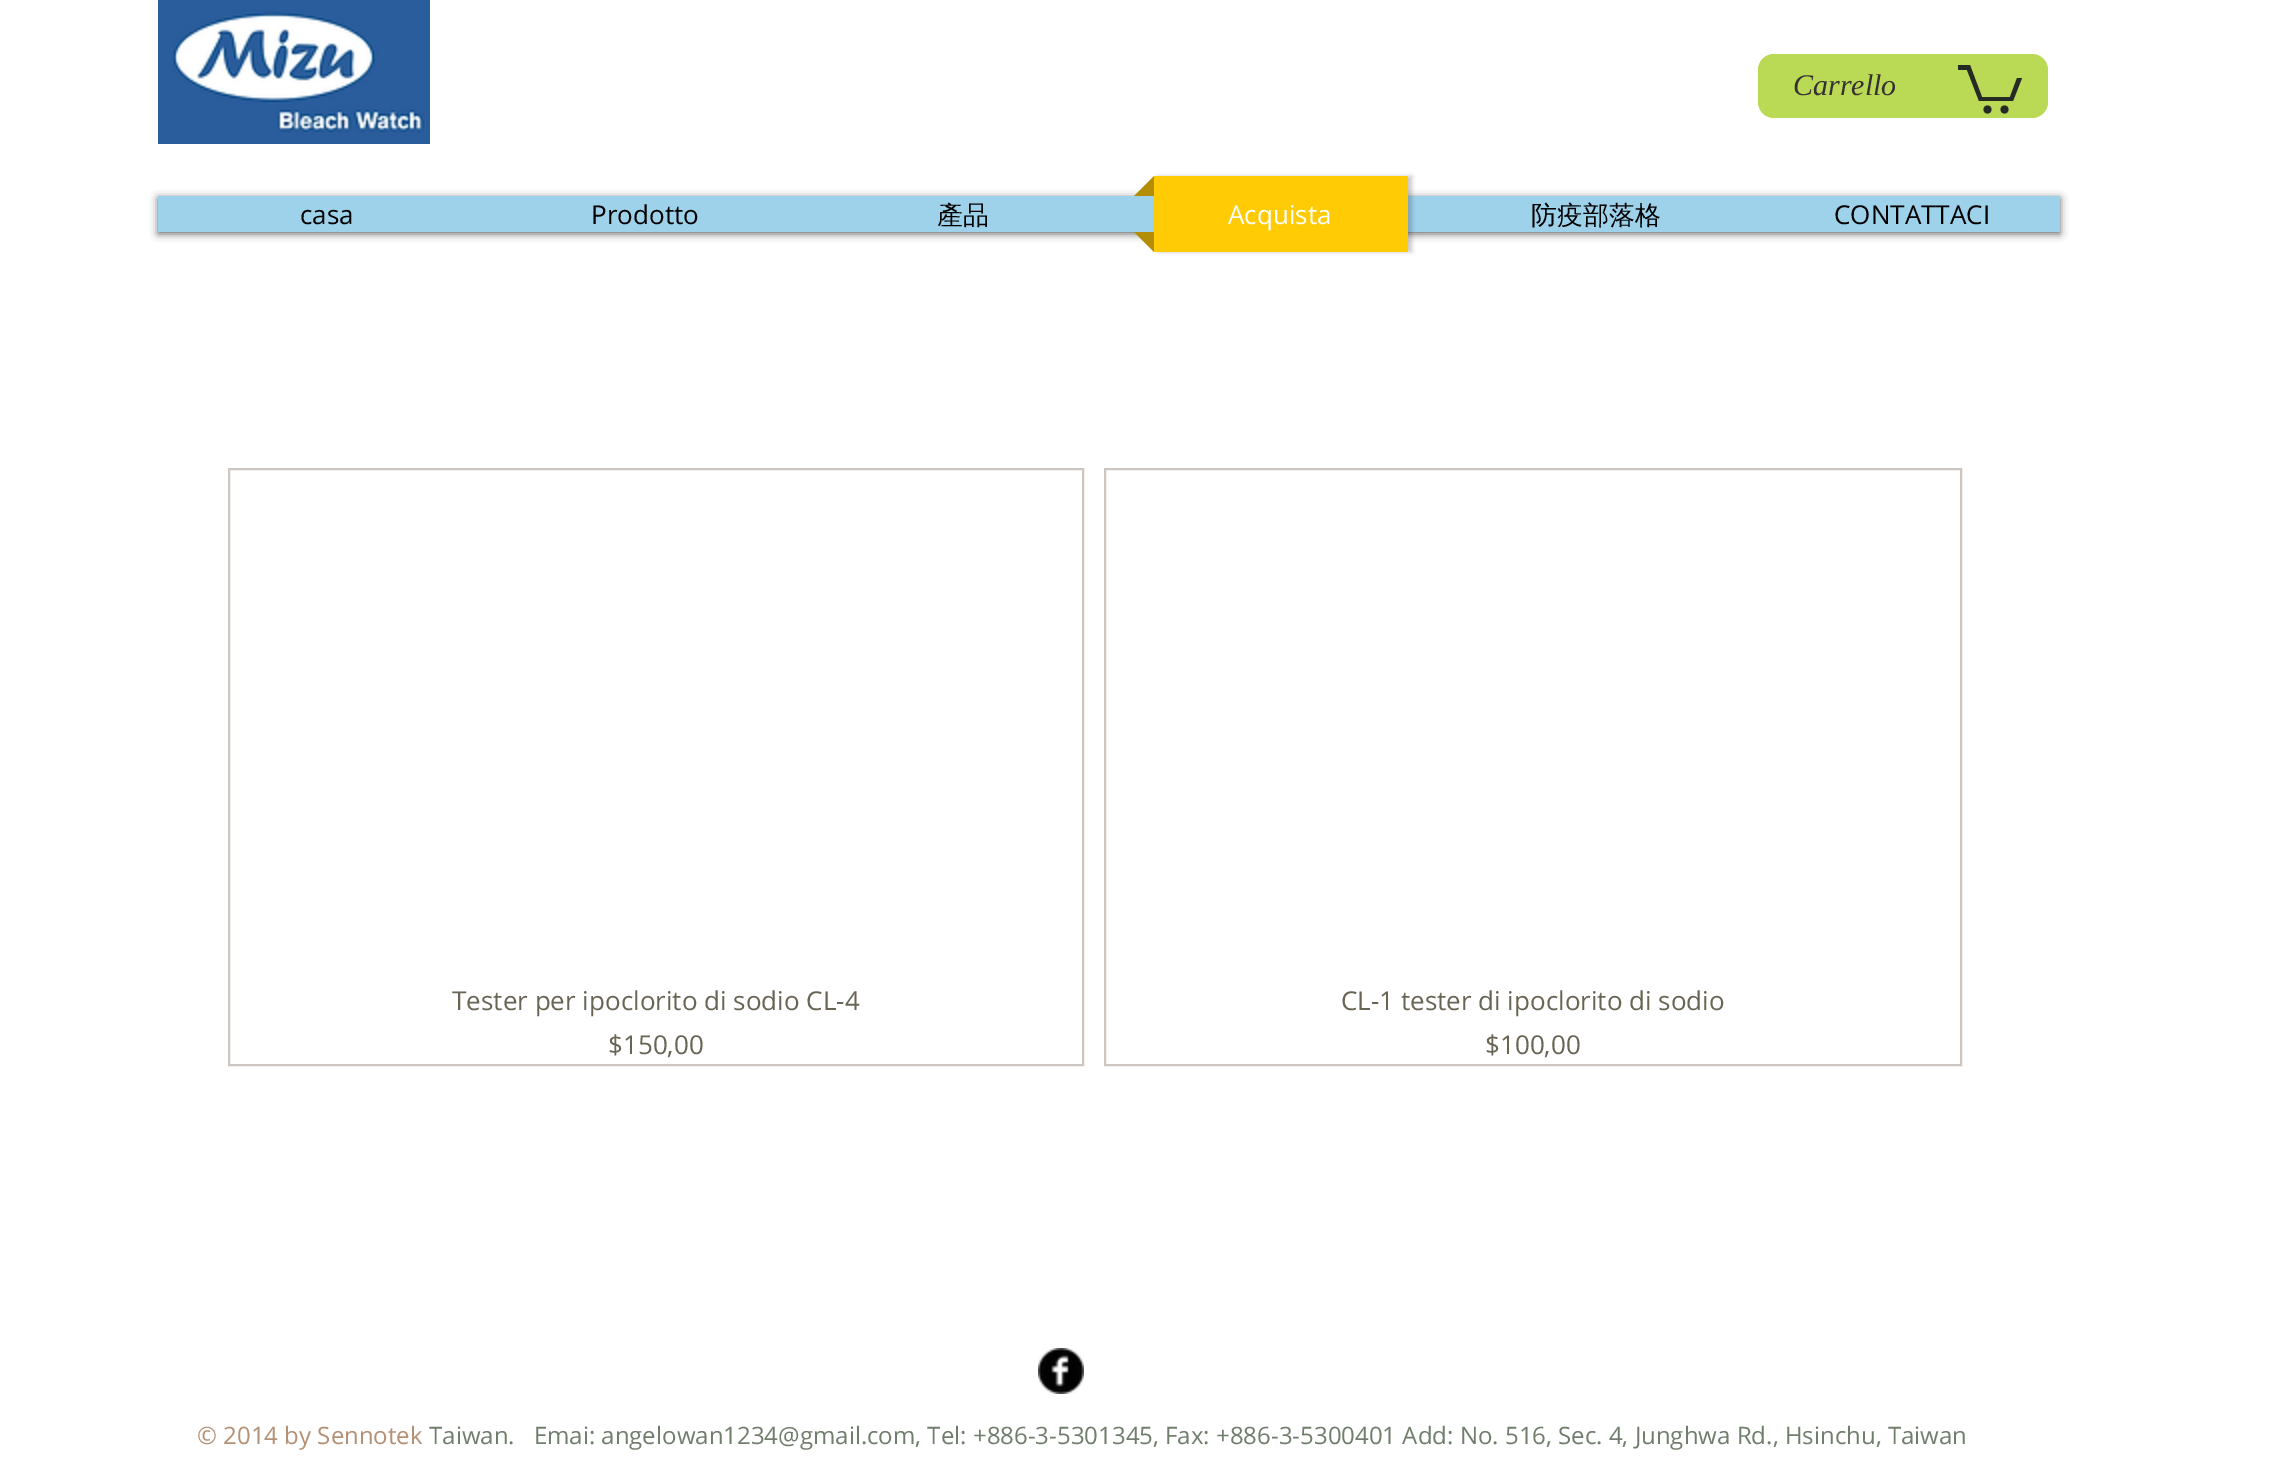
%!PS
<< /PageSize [2274 1478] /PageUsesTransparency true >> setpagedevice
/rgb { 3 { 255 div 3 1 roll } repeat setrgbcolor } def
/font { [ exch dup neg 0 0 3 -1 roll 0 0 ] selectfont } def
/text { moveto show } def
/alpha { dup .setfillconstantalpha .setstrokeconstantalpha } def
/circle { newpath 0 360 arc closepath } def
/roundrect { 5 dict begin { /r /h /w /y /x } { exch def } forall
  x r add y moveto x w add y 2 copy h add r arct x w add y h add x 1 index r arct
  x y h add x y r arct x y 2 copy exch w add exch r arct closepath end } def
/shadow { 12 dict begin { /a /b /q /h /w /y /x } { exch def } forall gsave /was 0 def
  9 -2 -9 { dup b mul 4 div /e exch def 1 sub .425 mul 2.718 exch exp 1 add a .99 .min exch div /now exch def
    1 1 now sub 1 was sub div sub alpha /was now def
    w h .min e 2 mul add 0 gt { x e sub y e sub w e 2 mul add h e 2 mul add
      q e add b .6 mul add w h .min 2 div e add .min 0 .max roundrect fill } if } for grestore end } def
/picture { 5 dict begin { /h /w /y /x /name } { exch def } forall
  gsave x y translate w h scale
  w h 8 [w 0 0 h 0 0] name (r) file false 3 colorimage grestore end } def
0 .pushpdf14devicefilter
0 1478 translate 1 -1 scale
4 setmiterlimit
255 255 255 rgb
0 0 2274 1478 rectfill
(img_01.rgb) 158 0 272 144 picture
186 218 85 rgb
1758 54 290 64 16 roundrect fill
38 42 36 rgb
2022 78 moveto -9 23 rlineto -34 0 rlineto -12 -31 rlineto -9 0 rlineto 0 -5 rlineto 12 0 rlineto 12 32 rlineto 28 0 rlineto 7 -19 rlineto fill
2004.5 109.5 4 circle fill
1987.5 109.5 4 circle fill
0 0 0 rgb
158 198 1902 36 0 4 0.6 shadow
158 210 235 rgb
158 196 1902 36 rectfill
0 0 0 rgb
1158 176 254 76 0 2 0.2 shadow
179 142 4 rgb
1154 196 moveto -20 0 rlineto 20 -20 rlineto closepath fill
255 203 5 rgb
1154 176 254 76 rectfill
179 142 4 rgb
1134 232 moveto 20 0 rlineto 0 20 rlineto closepath fill
205 197 191 rgb
2 setlinewidth
229 469 854 596 rectstroke
1105 469 856 596 rectstroke
(img_02.rgb) 1038 1348 46 46 picture
/LiberationSerif-Italic 30 font
53 49 49 rgb
(Carrello) 1793 95 text
/OpenSans-Regular 26 font
0 0 0 rgb
(casa) 300 224 text
(Prodotto) 591 224 text
/WenQuanYiZenHei-Medium 26 font
(產品) 937 224 text
/OpenSans-Regular 26 font
255 255 255 rgb
(Acquista) 1228 224 text
/WenQuanYiZenHei-Medium 26 font
0 0 0 rgb
(防疫部落格) 1531 224 text
/OpenSans-Regular 26 font
(CONTATTACI) 1834 224 text
105 101 84 rgb
(Tester per ipoclorito di sodio CL-4) 452 1010 text
($150,00) 608 1054 text
(CL-1 tester di ipoclorito di sodio) 1341 1010 text
($100,00) 1485 1054 text
/OpenSans-Regular 24 font
180 144 116 rgb
(© 2014 by Sennotek) 197 1444 text
114 126 109 rgb
(Taiwan.   Emai: angelowan1234@gmail.com, Tel: +886-3-5301345, Fax: +886-3-5300401 Add: No. 516, Sec. 4, Junghwa Rd., Hsinchu, Taiwan) 429 1444 text
.poppdf14devicefilter showpage
